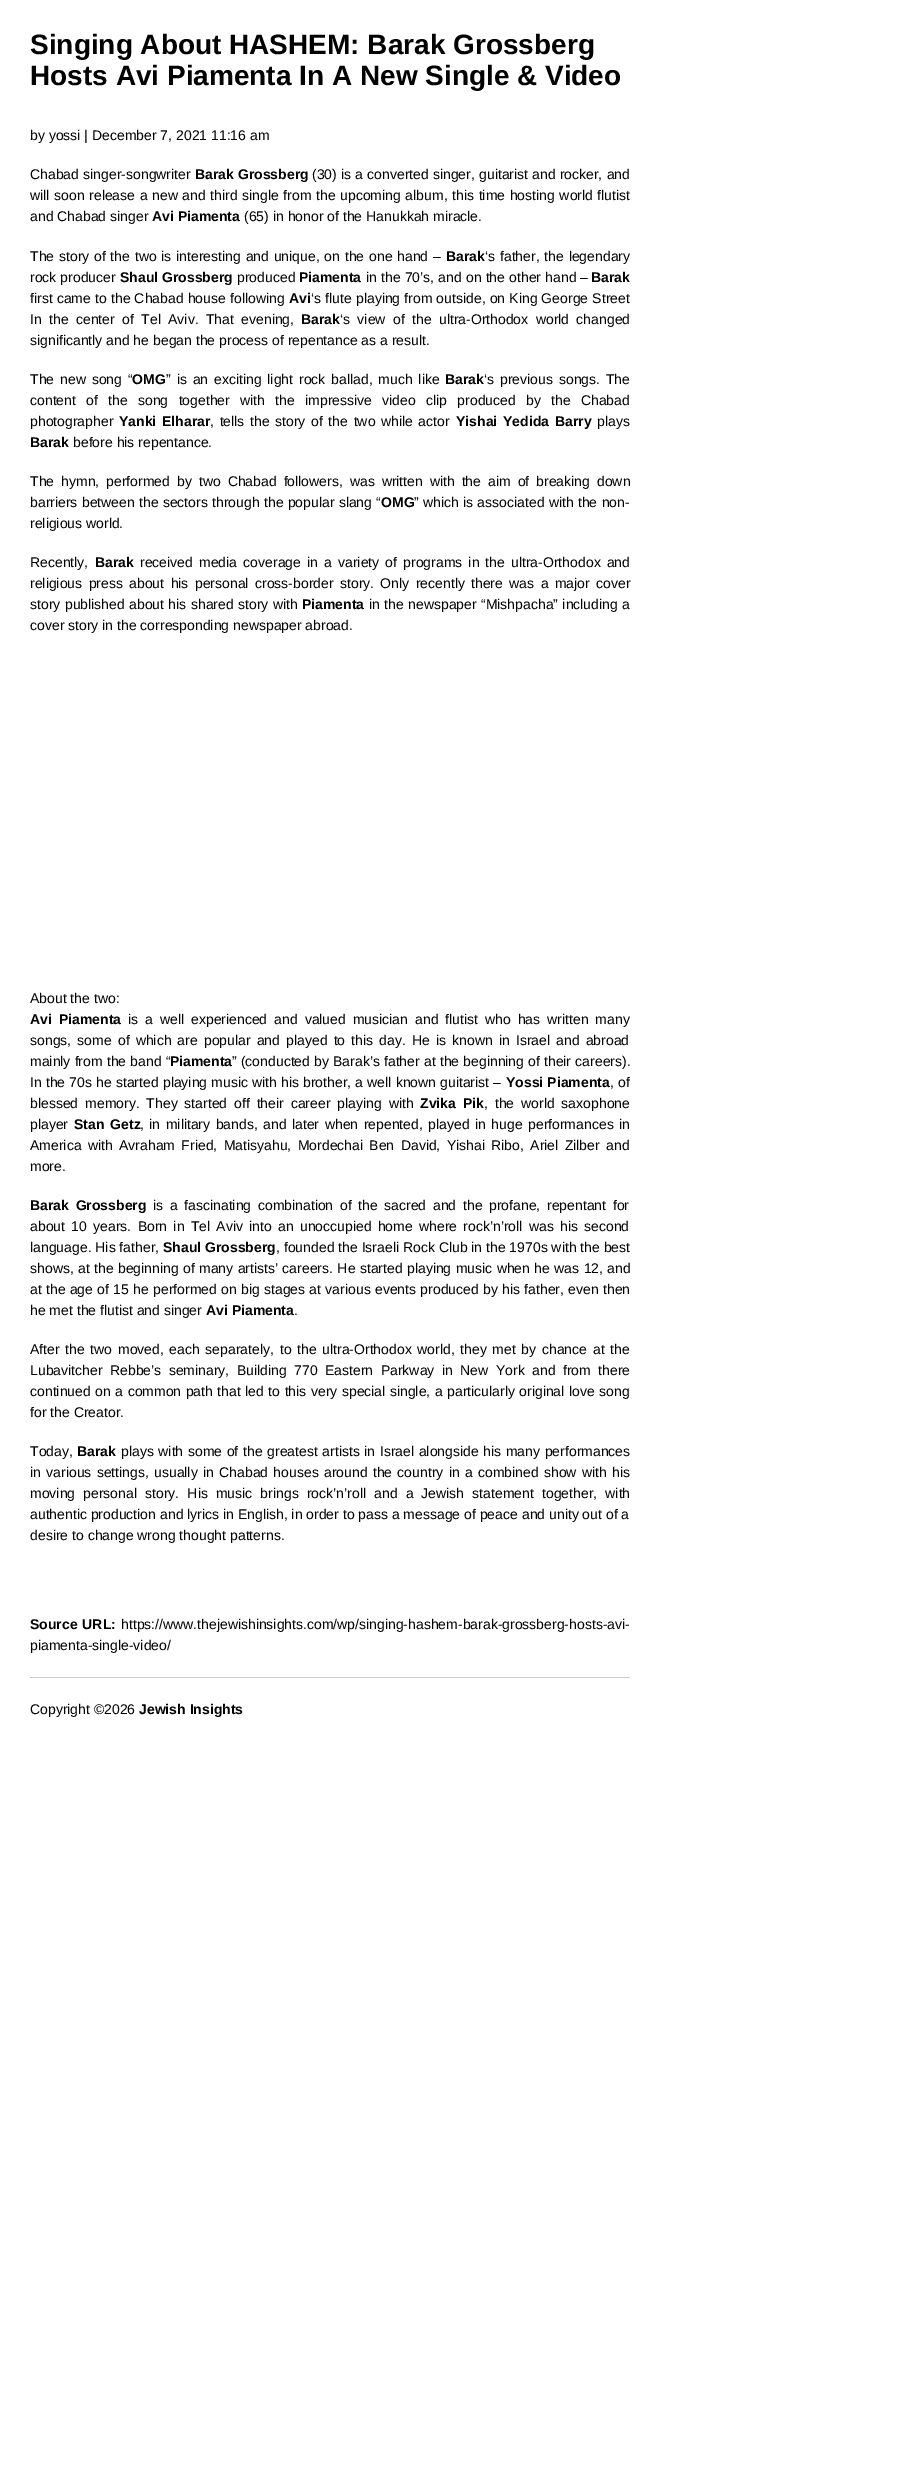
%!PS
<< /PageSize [909 2466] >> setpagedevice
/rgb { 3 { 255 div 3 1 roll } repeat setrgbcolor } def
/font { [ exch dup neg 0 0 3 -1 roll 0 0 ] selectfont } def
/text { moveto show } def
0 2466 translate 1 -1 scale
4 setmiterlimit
255 255 255 rgb
0 0 909 2466 rectfill
204 204 204 rgb
30 1677 600 1 rectfill
/LiberationSans-Bold 28 font
0 0 0 rgb
(Singing About HASHEM: Barak Grossberg) 30 54 text
(Hosts Avi Piamenta In A New Single & Video) 30 85 text
/LiberationSans-Regular 14 font
(by yossi | December 7, 2021 11:16 am) 30 140 text
30 179 moveto 0.25 0 32 (Chabad singer-songwriter) widthshow
/LiberationSans-Bold 14 font
(Barak Grossberg) 195 179 text
/LiberationSans-Regular 14 font
312 179 moveto 0.25 0 32 (\(30\) is a converted singer, guitarist and rocker, and) widthshow
30 200 moveto 0.75 0 32 (will soon release a new and third single from the upcoming album, this time hosting world flutist) widthshow
(and Chabad singer) 30 221 text
/LiberationSans-Bold 14 font
(Avi Piamenta) 152 221 text
/LiberationSans-Regular 14 font
(\(65\) in honor of the Hanukkah miracle.) 244 221 text
30 261 moveto 0.9 0 32 (The story of the two is interesting and unique, on the one hand –) widthshow
/LiberationSans-Bold 14 font
(Barak) 446 261 text
/LiberationSans-Regular 14 font
485 261 moveto 0.9 0 32 (‘s father, the legendary) widthshow
(rock producer) 30 282 text
/LiberationSans-Bold 14 font
(Shaul Grossberg) 120 282 text
/LiberationSans-Regular 14 font
(produced) 237 282 text
/LiberationSans-Bold 14 font
(Piamenta) 299 282 text
/LiberationSans-Regular 14 font
366 282 moveto 0.25 0 32 (in the 70’s, and on the other hand –) widthshow
/LiberationSans-Bold 14 font
(Barak) 591 282 text
/LiberationSans-Regular 14 font
30 303 moveto 0.25 0 32 (first came to the Chabad house following) widthshow
/LiberationSans-Bold 14 font
(Avi) 289 303 text
/LiberationSans-Regular 14 font
311 303 moveto 0.25 0 32 (‘s flute playing from outside, on King George Street) widthshow
30 324 moveto 3.5 0 32 (In the center of Tel Aviv. That evening,) widthshow
/LiberationSans-Bold 14 font
(Barak) 301 324 text
/LiberationSans-Regular 14 font
340 324 moveto 3.5 0 32 (‘s view of the ultra-Orthodox world changed) widthshow
(significantly and he began the process of repentance as a result.) 30 345 text
30 384 moveto 2 0 32 (The new song “) widthshow
/LiberationSans-Bold 14 font
(OMG) 132 384 text
/LiberationSans-Regular 14 font
166 384 moveto 2 0 32 (” is an exciting light rock ballad, much like) widthshow
/LiberationSans-Bold 14 font
(Barak) 445 384 text
/LiberationSans-Regular 14 font
484 384 moveto 2 0 32 (‘s previous songs. The) widthshow
30 405 moveto 6.4 0 32 (content of the song together with the impressive video clip produced by the Chabad) widthshow
(photographer) 30 426 text
/LiberationSans-Bold 14 font
119 426 moveto 1.75 0 32 (Yanki Elharar) widthshow
/LiberationSans-Regular 14 font
210 426 moveto 1.75 0 32 (, tells the story of the two while actor) widthshow
/LiberationSans-Bold 14 font
456 426 moveto 2 0 32 (Yishai Yedida Barry) widthshow
/LiberationSans-Regular 14 font
(plays) 597 426 text
/LiberationSans-Bold 14 font
(Barak) 30 447 text
/LiberationSans-Regular 14 font
(before his repentance.) 73 447 text
30 486 moveto 3.1 0 32 (The hymn, performed by two Chabad followers, was written with the aim of breaking down) widthshow
30 507 moveto 0.4 0 32 (barriers between the sectors through the popular slang “) widthshow
/LiberationSans-Bold 14 font
(OMG) 381 507 text
/LiberationSans-Regular 14 font
414 507 moveto 0.4 0 32 (” which is associated with the non-) widthshow
(religious world.) 30 528 text
(Recently,) 30 567 text
/LiberationSans-Bold 14 font
(Barak) 95 567 text
/LiberationSans-Regular 14 font
140 567 moveto 2.25 0 32 (received media coverage in a variety of programs in the ultra-Orthodox and) widthshow
30 588 moveto 2.5 0 32 (religious press about his personal cross-border story. Only recently there was a major cover) widthshow
30 609 moveto 0.5 0 32 (story published about his shared story with) widthshow
/LiberationSans-Bold 14 font
(Piamenta) 302 609 text
/LiberationSans-Regular 14 font
369 609 moveto 0.5 0 32 (in the newspaper “Mishpacha” including a) widthshow
(cover story in the corresponding newspaper abroad.) 30 630 text
(About the two:) 30 1003 text
/LiberationSans-Bold 14 font
30 1024 moveto 3.1 0 32 (Avi Piamenta) widthshow
/LiberationSans-Regular 14 font
128 1024 moveto 3.1 0 32 (is a well experienced and valued musician and flutist who has written many) widthshow
30 1045 moveto 2.25 0 32 (songs, some of which are popular and played to this day. He is known in Israel and abroad) widthshow
30 1066 moveto 0.25 0 32 (mainly from the band “) widthshow
/LiberationSans-Bold 14 font
(Piamenta) 170 1066 text
/LiberationSans-Regular 14 font
232 1066 moveto 0.25 0 32 (” \(conducted by Barak’s father at the beginning of their careers\).) widthshow
30 1087 moveto 0.25 0 32 (In the 70s he started playing music with his brother, a well known guitarist –) widthshow
/LiberationSans-Bold 14 font
506 1087 moveto 0.25 0 32 (Yossi Piamenta) widthshow
/LiberationSans-Regular 14 font
(, of) 610 1087 text
30 1108 moveto 3 0 32 (blessed memory. They started off their career playing with) widthshow
/LiberationSans-Bold 14 font
420 1108 moveto 3 0 32 (Zvika Pik) widthshow
/LiberationSans-Regular 14 font
484 1108 moveto 3 0 32 (, the world saxophone) widthshow
(player) 30 1129 text
/LiberationSans-Bold 14 font
74 1129 moveto 2 0 32 (Stan Getz) widthshow
/LiberationSans-Regular 14 font
140 1129 moveto 1.6 0 32 (, in military bands, and later when repented, played in huge performances in) widthshow
30 1150 moveto 2.5 0 32 (America with Avraham Fried, Matisyahu, Mordechai Ben David, Yishai Ribo, Ariel Zilber and) widthshow
(more.) 30 1171 text
/LiberationSans-Bold 14 font
30 1210 moveto 2.75 0 32 (Barak Grossberg) widthshow
/LiberationSans-Regular 14 font
153 1210 moveto 2.75 0 32 (is a fascinating combination of the sacred and the profane, repentant for) widthshow
30 1231 moveto 2.4 0 32 (about 10 years. Born in Tel Aviv into an unoccupied home where rock’n’roll was his second) widthshow
(language. His father,) 30 1252 text
/LiberationSans-Bold 14 font
(Shaul Grossberg) 163 1252 text
/LiberationSans-Regular 14 font
(, founded the Israeli Rock Club in the 1970s with the best) 276 1252 text
30 1273 moveto 0.5 0 32 (shows, at the beginning of many artists’ careers. He started playing music when he was 12, and) widthshow
30 1294 moveto 0.4 0 32 (at the age of 15 he performed on big stages at various events produced by his father, even then) widthshow
(he met the flutist and singer) 30 1315 text
/LiberationSans-Bold 14 font
(Avi Piamenta) 206 1315 text
/LiberationSans-Regular 14 font
(.) 294 1315 text
30 1354 moveto 1.8 0 32 (After the two moved, each separately, to the ultra-Orthodox world, they met by chance at the) widthshow
30 1375 moveto 3.6 0 32 (Lubavitcher Rebbe’s seminary, Building 770 Eastern Parkway in New York and from there) widthshow
30 1396 moveto 0.6 0 32 (continued on a common path that led to this very special single, a particularly original love song) widthshow
(for the Creator.) 30 1417 text
(Today,) 30 1456 text
/LiberationSans-Bold 14 font
(Barak) 77 1456 text
/LiberationSans-Regular 14 font
121 1456 moveto 0.75 0 32 (plays with some of the greatest artists in Israel alongside his many performances) widthshow
30 1477 moveto 1.4 0 32 (in various settings, usually in Chabad houses around the country in a combined show with his) widthshow
30 1498 moveto 4.25 0 32 (moving personal story. His music brings rock’n’roll and a Jewish statement together, with) widthshow
(authentic production and lyrics in English, in order to pass a message of peace and unity out of a) 30 1519 text
(desire to change wrong thought patterns.) 30 1540 text
/LiberationSans-Bold 14 font
30 1629 moveto 1 0 32 (Source URL:) widthshow
/LiberationSans-Regular 14 font
(https://www.thejewishinsights.com/wp/singing-hashem-barak-grossberg-hosts-avi-) 121 1629 text
(piamenta-single-video/) 30 1650 text
(Copyright ©2026) 30 1714 text
/LiberationSans-Bold 14 font
(Jewish Insights) 139 1714 text
showpage
